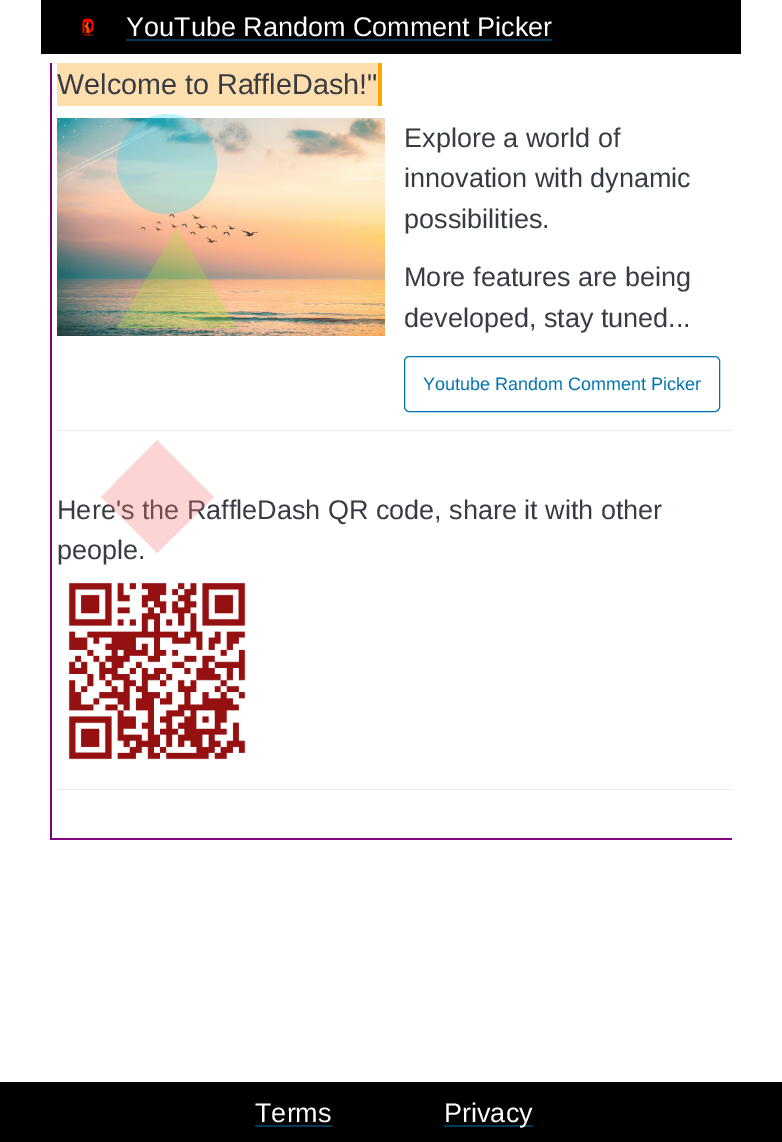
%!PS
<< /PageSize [782 1142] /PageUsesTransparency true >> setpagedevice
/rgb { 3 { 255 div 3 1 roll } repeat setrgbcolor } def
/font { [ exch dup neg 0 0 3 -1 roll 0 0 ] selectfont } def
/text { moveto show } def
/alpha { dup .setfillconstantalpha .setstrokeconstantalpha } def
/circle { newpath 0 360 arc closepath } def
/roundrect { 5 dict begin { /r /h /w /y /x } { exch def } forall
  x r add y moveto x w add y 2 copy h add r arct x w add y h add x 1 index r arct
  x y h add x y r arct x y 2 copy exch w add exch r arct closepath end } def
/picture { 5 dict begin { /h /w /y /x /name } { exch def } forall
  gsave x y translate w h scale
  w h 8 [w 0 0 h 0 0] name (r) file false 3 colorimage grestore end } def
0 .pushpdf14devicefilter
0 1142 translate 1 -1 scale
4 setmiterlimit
255 255 255 rgb
0 0 782 1142 rectfill
0 0 0 rgb
41 0 700 54 rectfill
(img_01.rgb) 82 18 12 18 picture
1 57 87 rgb
126 39 426 2 rectfill
128 0 128 rgb
50 838 682 2 rectfill
50 63 2 777 rectfill
255 222 173 rgb
57 63 321 43 rectfill
255 165 0 rgb
378 63 4 43 rectfill
(img_02.rgb) 57 118 328 218 picture
1 114 173 rgb
404.5 356.5 315 55 4.5 roundrect stroke
231 234 240 rgb
57 430 675 1 rectfill
(img_03.rgb) 68 582 178 178 picture
57 789 675 1 rectfill
0.3 alpha
34 211 238 rgb
167 164 50 circle fill
163 230 53 rgb
237 328 moveto -120 0 rlineto 60 -100 rlineto closepath fill
1 alpha
0 0 0 rgb
0 1082 782 60 rectfill
1 57 87 rgb
255 1125 77 2 rectfill
444 1125 89 2 rectfill
/LiberationSans-Regular 27 font
255 255 255 rgb
(YouTube Random Comment Picker) 126 36 text
/LiberationSans-Regular 28.75 font
55 60 68 rgb
(Welcome to RaffleDash!") 57 94 text
/LiberationSans-Regular 27 font
(Explore a world of) 404 147 text
(innovation with dynamic) 404 187 text
(possibilities.) 404 228 text
(More features are being) 404 286 text
(developed, stay tuned...) 404 327 text
/LiberationSans-Regular 18 font
1 114 173 rgb
(Youtube Random Comment Picker) 423 390 text
/LiberationSans-Regular 27 font
55 60 68 rgb
(Here's the RaffleDash QR code, share it with other) 57 519 text
(people.) 57 559 text
0.3 alpha
248 113 113 rgb
157 440 moveto 57 57 rlineto -57 56 rlineto -56 -56 rlineto closepath fill
1 alpha
255 255 255 rgb
(Terms) 255 1122 text
(Privacy) 444 1122 text
.poppdf14devicefilter showpage
